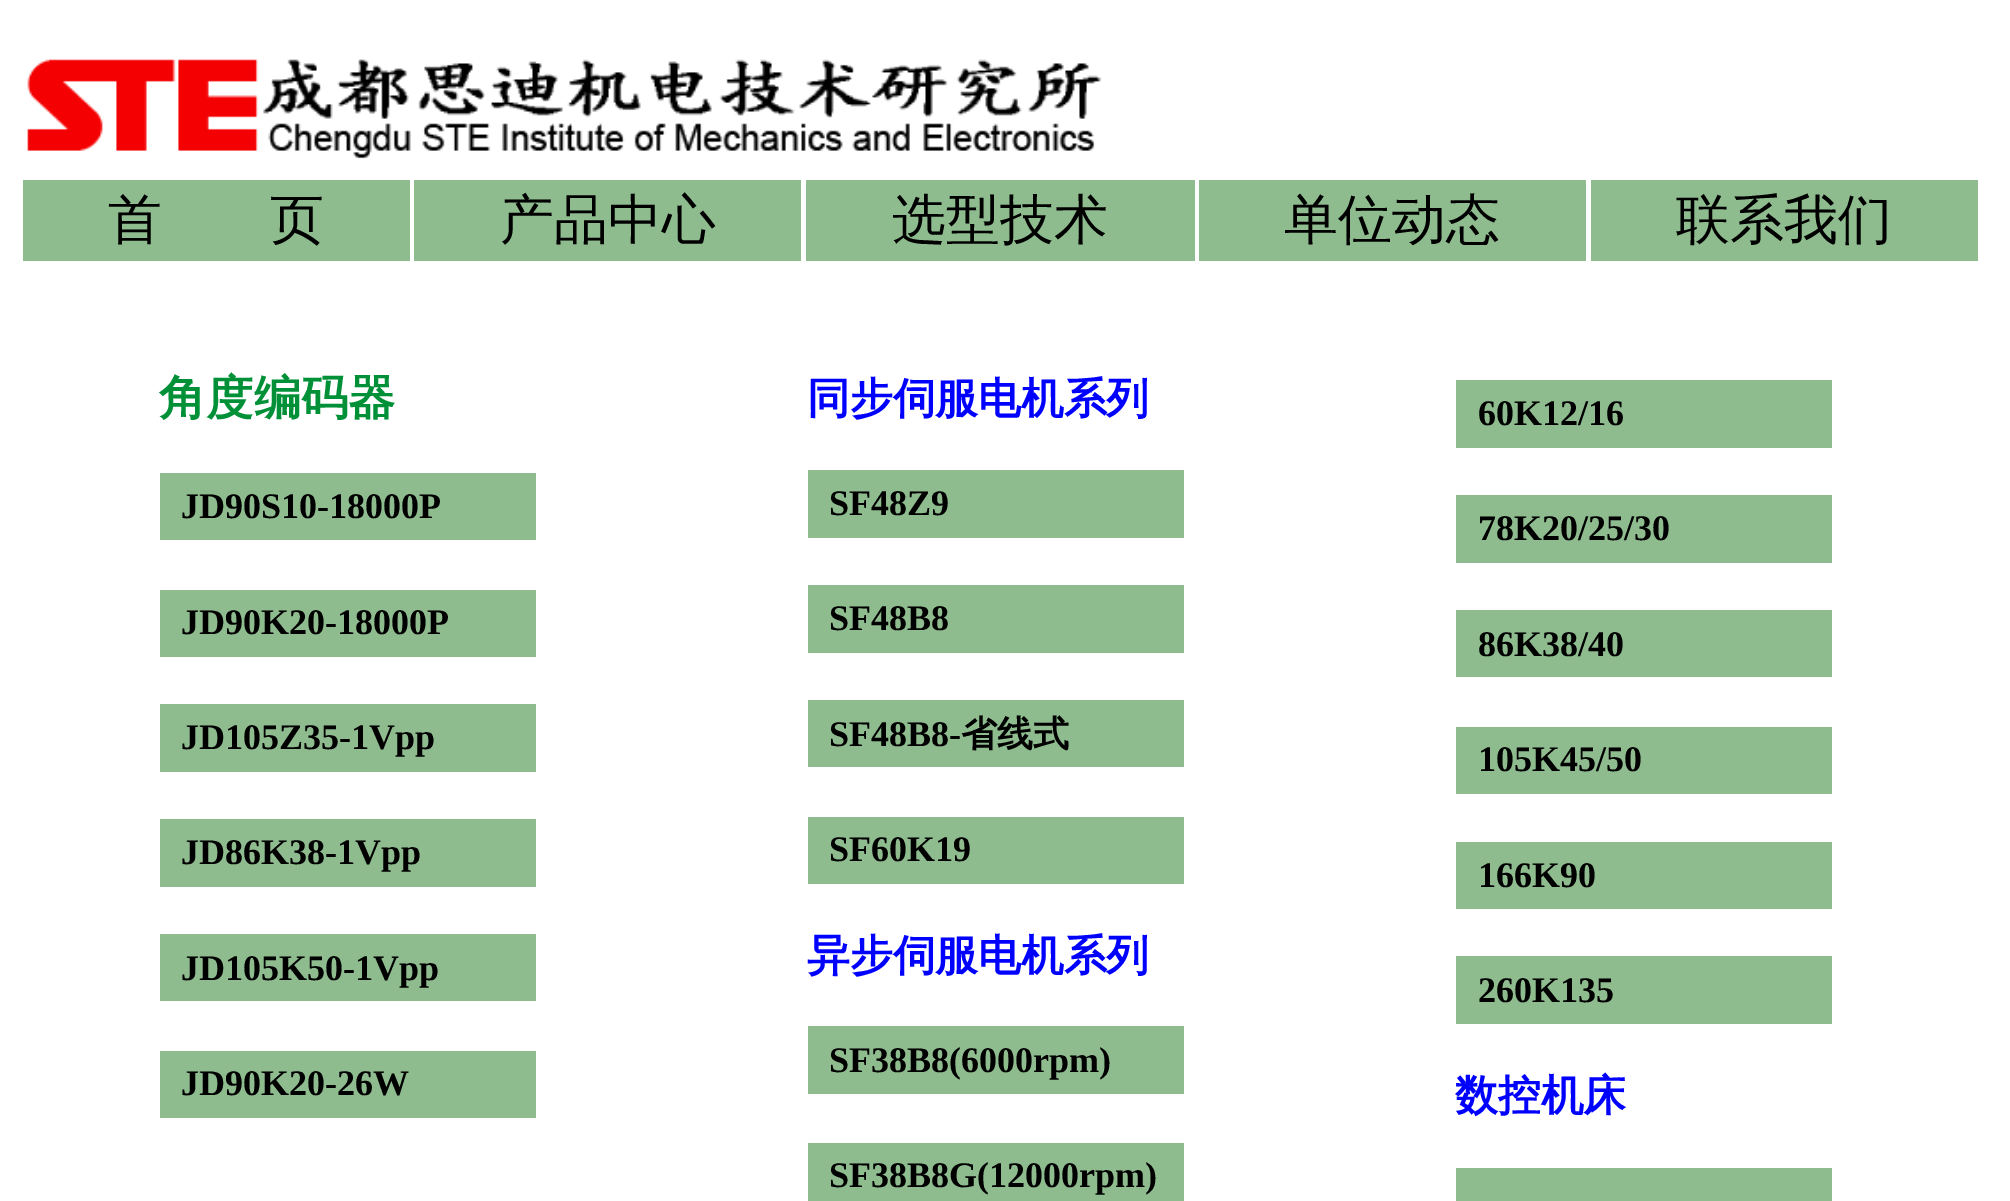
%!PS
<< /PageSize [2010 1201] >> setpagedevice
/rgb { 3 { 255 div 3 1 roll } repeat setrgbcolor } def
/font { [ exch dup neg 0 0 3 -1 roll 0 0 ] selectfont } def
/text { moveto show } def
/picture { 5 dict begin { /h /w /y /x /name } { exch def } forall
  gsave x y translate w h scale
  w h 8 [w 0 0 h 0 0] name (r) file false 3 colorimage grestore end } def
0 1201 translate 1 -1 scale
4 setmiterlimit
255 255 255 rgb
0 0 2010 1201 rectfill
(img_01.rgb) 27 59 1075 100 picture
143 188 143 rgb
23 180 387 81 rectfill
414 180 387 81 rectfill
806 180 389 81 rectfill
1199 180 387 81 rectfill
1591 180 387 81 rectfill
160 473 376 67 rectfill
160 590 376 67 rectfill
160 704 376 68 rectfill
160 819 376 68 rectfill
160 934 376 67 rectfill
160 1051 376 67 rectfill
808 470 376 68 rectfill
808 585 376 68 rectfill
808 700 376 67 rectfill
808 817 376 67 rectfill
808 1026 376 68 rectfill
808 1143 376 58 rectfill
1456 380 376 68 rectfill
1456 495 376 68 rectfill
1456 610 376 67 rectfill
1456 727 376 67 rectfill
1456 842 376 67 rectfill
1456 956 376 68 rectfill
1456 1168 376 33 rectfill
/WenQuanYiZenHei-Medium 54 font
0 0 0 rgb
(首　　页) 108 238 text
(产品中心) 500 238 text
(选型技术) 892 238 text
(单位动态) 1284 238 text
(联系我们) 1676 238 text
/WenQuanYiZenHei-Bold 47.25 font
0 144 55 rgb
(角度编码器) 159 414 text
/LiberationSerif-Bold 36 font
0 0 0 rgb
(JD90S10-18000P) 181 518 text
(JD90K20-18000P) 181 634 text
(JD105Z35-1Vpp) 181 749 text
(JD86K38-1Vpp) 181 864 text
(JD105K50-1Vpp) 181 980 text
(JD90K20-26W) 181 1095 text
/WenQuanYiZenHei-Bold 42.75 font
0 0 255 rgb
(同步伺服电机系列) 807 413 text
/LiberationSerif-Bold 36 font
0 0 0 rgb
(SF48Z9) 829 515 text
(SF48B8) 829 630 text
(SF48B8-) 829 746 text
/WenQuanYiZenHei-Bold 36 font
(省线式) 961 746 text
/LiberationSerif-Bold 36 font
(SF60K19) 829 861 text
/WenQuanYiZenHei-Bold 42.75 font
0 0 255 rgb
(异步伺服电机系列) 807 970 text
/LiberationSerif-Bold 36 font
0 0 0 rgb
(SF38B8\(6000rpm\)) 829 1072 text
(SF38B8G\(12000rpm\)) 829 1187 text
(60K12/16) 1478 425 text
(78K20/25/30) 1478 540 text
(86K38/40) 1478 656 text
(105K45/50) 1478 771 text
(166K90) 1478 887 text
(260K135) 1478 1002 text
/WenQuanYiZenHei-Bold 42.75 font
0 0 255 rgb
(数控机床) 1455 1110 text
showpage
